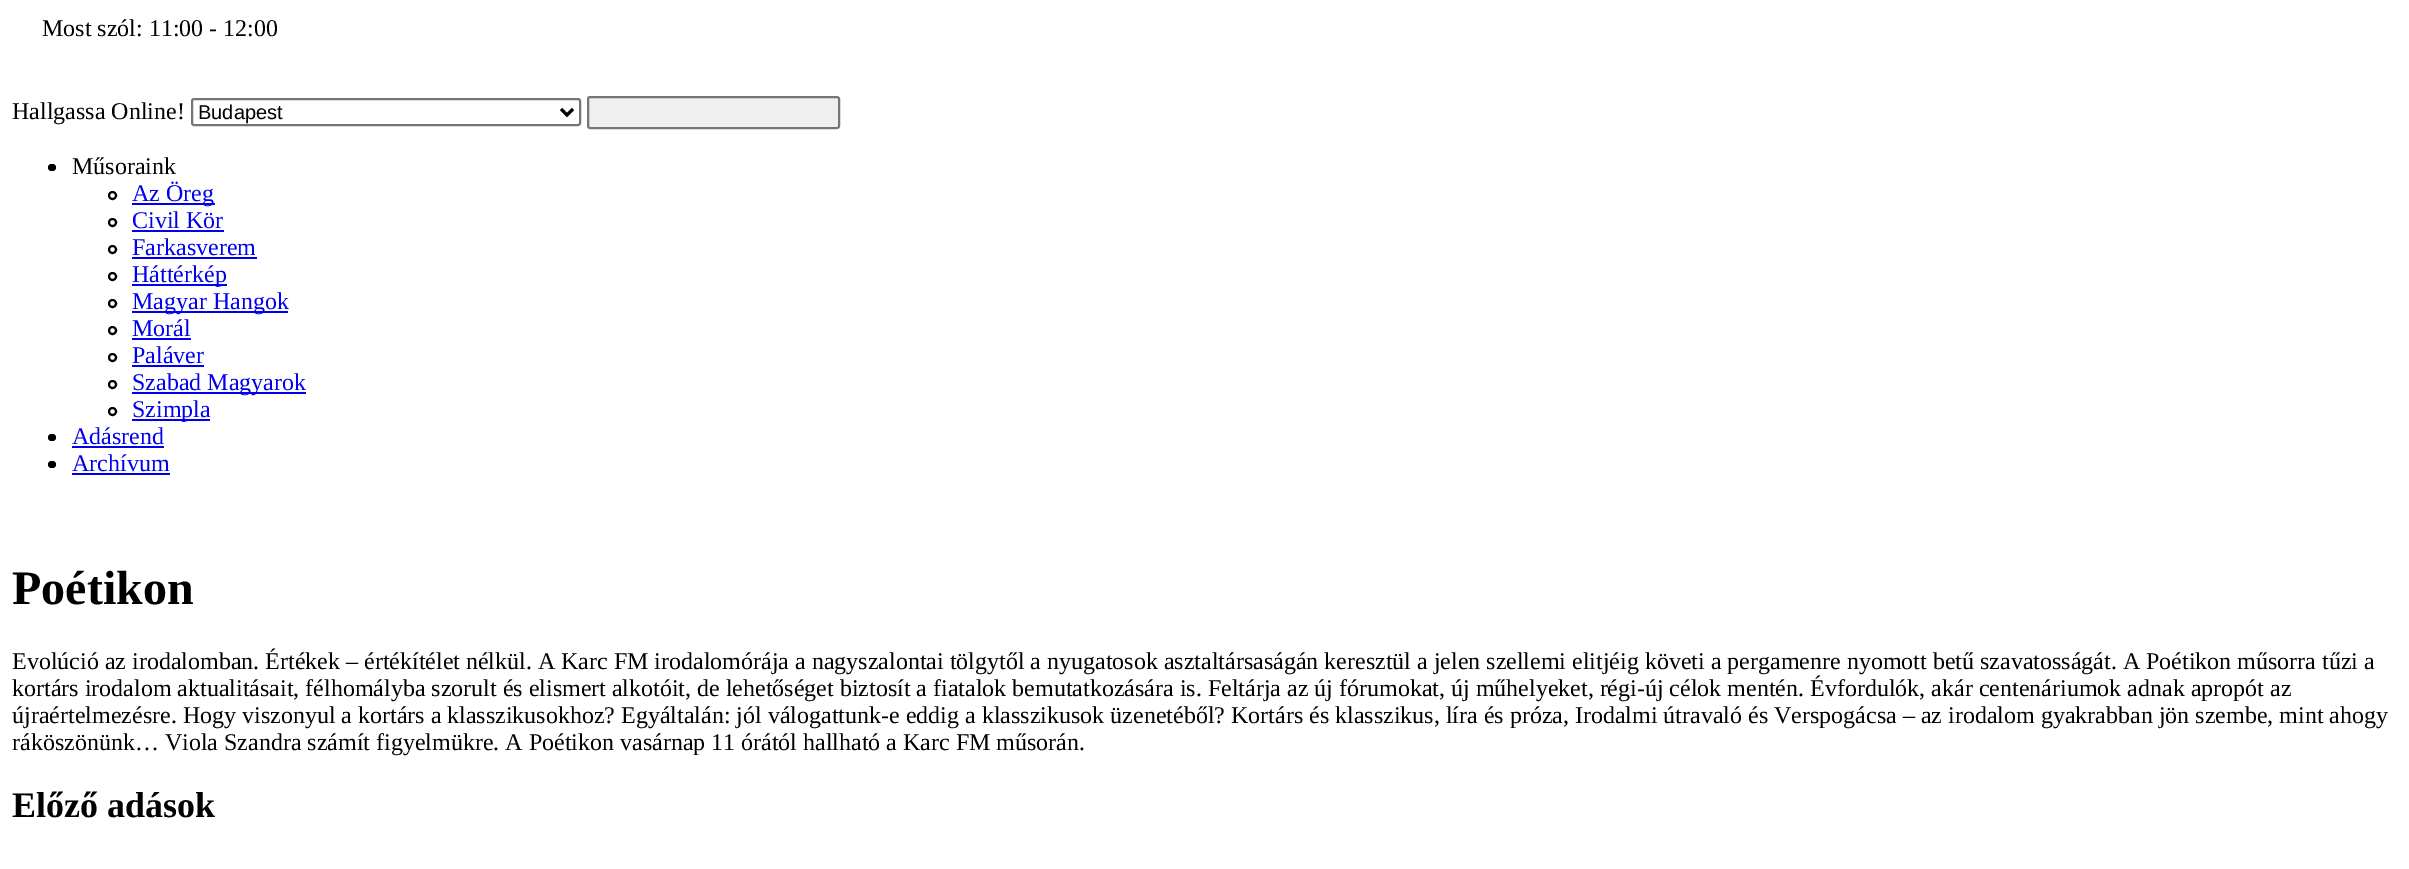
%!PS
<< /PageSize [2409 869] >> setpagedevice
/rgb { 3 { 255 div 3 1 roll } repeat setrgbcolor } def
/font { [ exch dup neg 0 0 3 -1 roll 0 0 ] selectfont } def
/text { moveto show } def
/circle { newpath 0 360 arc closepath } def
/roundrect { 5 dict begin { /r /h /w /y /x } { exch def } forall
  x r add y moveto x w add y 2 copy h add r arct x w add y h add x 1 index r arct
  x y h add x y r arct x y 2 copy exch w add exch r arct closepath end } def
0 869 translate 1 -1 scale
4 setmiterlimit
255 255 255 rgb
0 0 2409 869 rectfill
118 118 118 rgb
2 setlinewidth
192 99 388 26 2 roundrect stroke
0 0 0 rgb
3 setlinewidth
561 109 moveto 6 6 rlineto 6 -6 rlineto stroke
239 239 239 rgb
588 97 251 31 2 roundrect gsave fill grestore
118 118 118 rgb
2 setlinewidth
stroke
0 0 0 rgb
48 164 8 7 3.5 roundrect fill
112.5 195.5 3.5 circle stroke
0 0 238 rgb
132 203 83 2 rectfill
0 0 0 rgb
112.5 222.5 3.5 circle stroke
0 0 238 rgb
132 230 92 2 rectfill
0 0 0 rgb
112.5 249.5 3.5 circle stroke
0 0 238 rgb
132 257 125 2 rectfill
0 0 0 rgb
112.5 276.5 3.5 circle stroke
0 0 238 rgb
132 284 95 2 rectfill
0 0 0 rgb
112.5 303.5 3.5 circle stroke
0 0 238 rgb
132 311 156 2 rectfill
0 0 0 rgb
112.5 330.5 3.5 circle stroke
0 0 238 rgb
132 338 59 2 rectfill
0 0 0 rgb
112.5 357.5 3.5 circle stroke
0 0 238 rgb
132 365 72 2 rectfill
0 0 0 rgb
112.5 384.5 3.5 circle stroke
0 0 238 rgb
132 392 174 2 rectfill
0 0 0 rgb
112.5 411.5 3.5 circle stroke
0 0 238 rgb
132 419 78 2 rectfill
0 0 0 rgb
48 434 8 7 3.5 roundrect fill
0 0 238 rgb
72 446 92 2 rectfill
0 0 0 rgb
48 461 8 7 3.5 roundrect fill
0 0 238 rgb
72 473 98 2 rectfill
/LiberationSerif-Regular 24 font
0 0 0 rgb
(Most szól: 11:00 - 12:00) 42 36 text
(Hallgassa Online!) 12 119 text
/LiberationSans-Regular 20 font
(Budapest) 198 119 text
/LiberationSerif-Regular 24 font
(Műsoraink) 72 174 text
0 0 238 rgb
(Az Öreg) 132 201 text
(Civil Kör) 132 228 text
(Farkasverem) 132 255 text
(Háttérkép) 132 282 text
(Magyar Hangok) 132 309 text
(Morál) 132 336 text
(Paláver) 132 363 text
(Szabad Magyarok) 132 390 text
(Szimpla) 132 417 text
(Adásrend) 72 444 text
(Archívum) 72 471 text
/LiberationSerif-Bold 48 font
0 0 0 rgb
(Poétikon) 12 604 text
/LiberationSerif-Regular 24 font
(Evolúció az irodalomban. Értékek – értékítélet nélkül. A Karc FM irodalomórája a nagyszalontai tölgytől a nyugatosok asztaltársaságán keresztül a jelen szellemi elitjéig követi a pergamenre nyomott betű szavatosságát. A Poétikon műsorra tűzi a) 12 669 text
(kortárs irodalom aktualitásait, félhomályba szorult és elismert alkotóit, de lehetőséget biztosít a fiatalok bemutatkozására is. Feltárja az új fórumokat, új műhelyeket, régi-új célok mentén. Évfordulók, akár centenáriumok adnak apropót az) 12 696 text
(újraértelmezésre. Hogy viszonyul a kortárs a klasszikusokhoz? Egyáltalán: jól válogattunk-e eddig a klasszikusok üzenetéből? Kortárs és klasszikus, líra és próza, Irodalmi útravaló és Verspogácsa – az irodalom gyakrabban jön szembe, mint ahogy) 12 723 text
(ráköszönünk… Viola Szandra számít figyelmükre. A Poétikon vasárnap 11 órától hallható a Karc FM műsorán.) 12 750 text
/LiberationSerif-Bold 36 font
(Előző adások) 12 817 text
showpage
